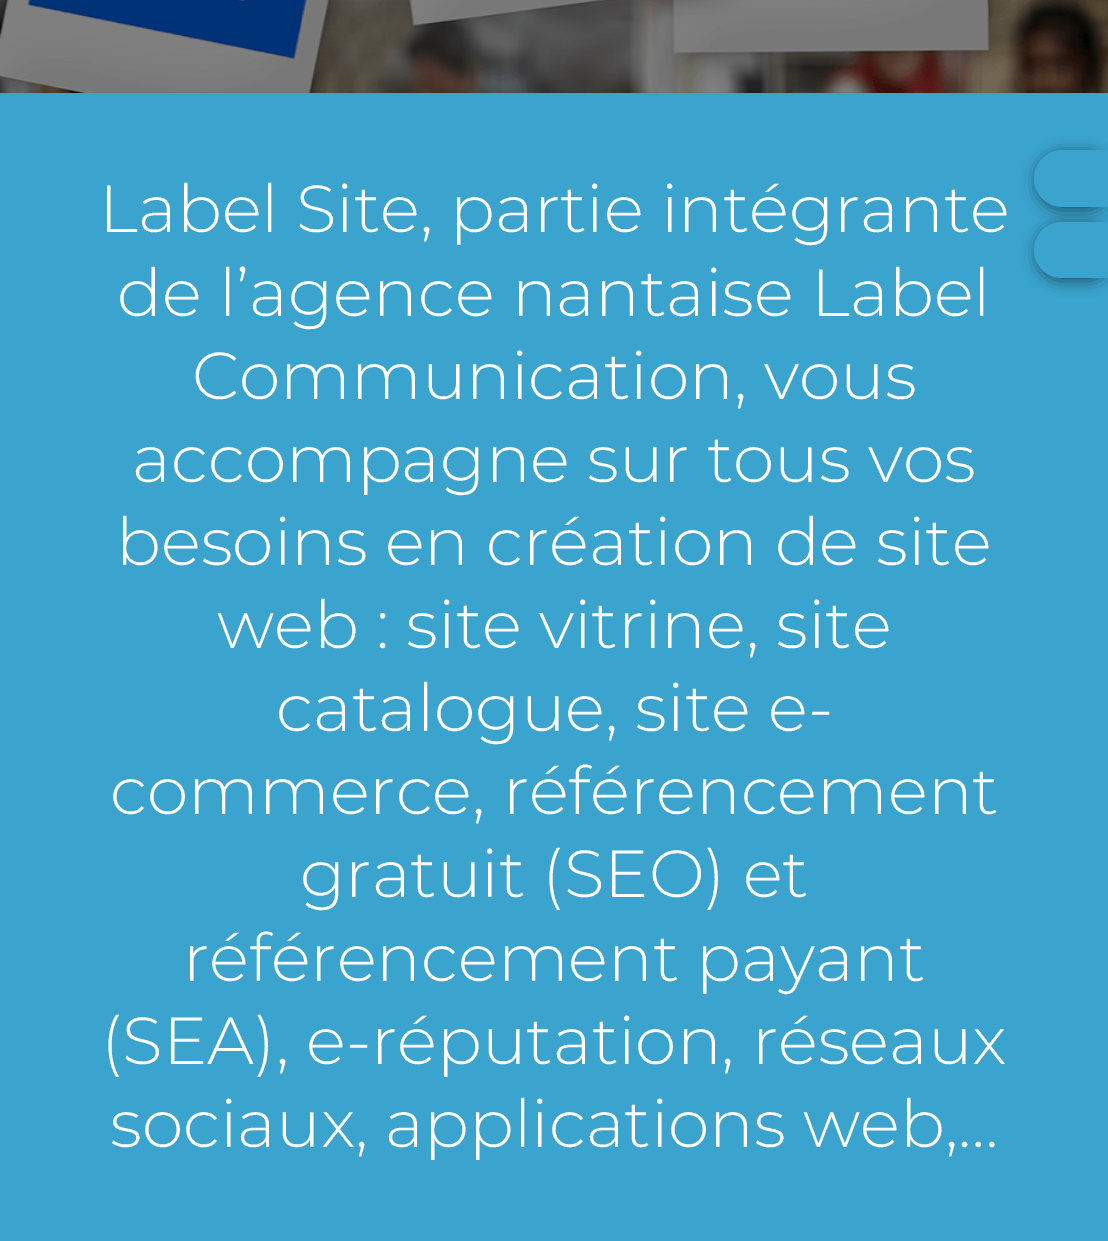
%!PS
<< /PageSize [1108 1241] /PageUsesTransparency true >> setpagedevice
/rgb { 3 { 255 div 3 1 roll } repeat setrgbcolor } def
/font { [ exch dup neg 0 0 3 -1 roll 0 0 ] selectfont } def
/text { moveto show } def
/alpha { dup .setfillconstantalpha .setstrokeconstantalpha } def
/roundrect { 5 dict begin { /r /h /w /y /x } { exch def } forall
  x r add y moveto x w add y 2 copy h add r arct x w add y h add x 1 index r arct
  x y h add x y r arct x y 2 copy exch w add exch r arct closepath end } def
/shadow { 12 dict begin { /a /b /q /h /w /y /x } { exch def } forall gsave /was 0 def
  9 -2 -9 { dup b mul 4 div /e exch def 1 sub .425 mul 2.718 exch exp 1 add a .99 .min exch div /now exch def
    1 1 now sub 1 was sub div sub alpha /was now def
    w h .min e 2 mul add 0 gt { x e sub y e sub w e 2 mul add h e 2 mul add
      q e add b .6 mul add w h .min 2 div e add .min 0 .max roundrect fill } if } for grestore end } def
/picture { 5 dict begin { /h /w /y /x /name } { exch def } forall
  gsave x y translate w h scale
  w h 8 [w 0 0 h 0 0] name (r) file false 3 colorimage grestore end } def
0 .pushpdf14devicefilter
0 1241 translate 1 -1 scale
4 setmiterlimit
255 255 255 rgb
0 0 1108 1241 rectfill
(img_01.rgb) 0 0 1108 93 picture
58 164 206 rgb
0 93 1108 1148 rectfill
0 0 0 rgb
1037 153 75 57 28.5 7.5 0.5 shadow
58 164 206 rgb
1062.5 150 moveto 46.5 0 rlineto 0 57 rlineto -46.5 0 rlineto -15.5 0 -28.5 -13 -28.5 -28.5 rcurveto 0 -15.5 13 -28.5 28.5 -28.5 rcurveto closepath fill
0 0 0 rgb
1037 225 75 56 28 7.5 0.5 shadow
58 164 206 rgb
1062 222 moveto 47 0 rlineto 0 56 rlineto -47 0 rlineto -15.5 0 -28 -12.5 -28 -28 rcurveto 0 -15.5 12.5 -28 28 -28 rcurveto closepath fill
/Montserrat-Light 66.5 font
255 255 255 rgb
(Label Site, partie intégrante) 99 232 text
(de l’agence nantaise Label) 117 316 text
(Communication, vous) 192 399 text
(accompagne sur tous vos) 132 482 text
(besoins en création de site) 116 565 text
(web : site vitrine, site) 217 648 text
(catalogue, site e-) 276 731 text
(commerce, référencement) 110 814 text
(gratuit \(SEO\) et) 300 897 text
(référencement payant) 183 981 text
(\(SEA\), e-réputation, réseaux) 101 1064 text
(sociaux, applications web,…) 110 1147 text
.poppdf14devicefilter showpage
